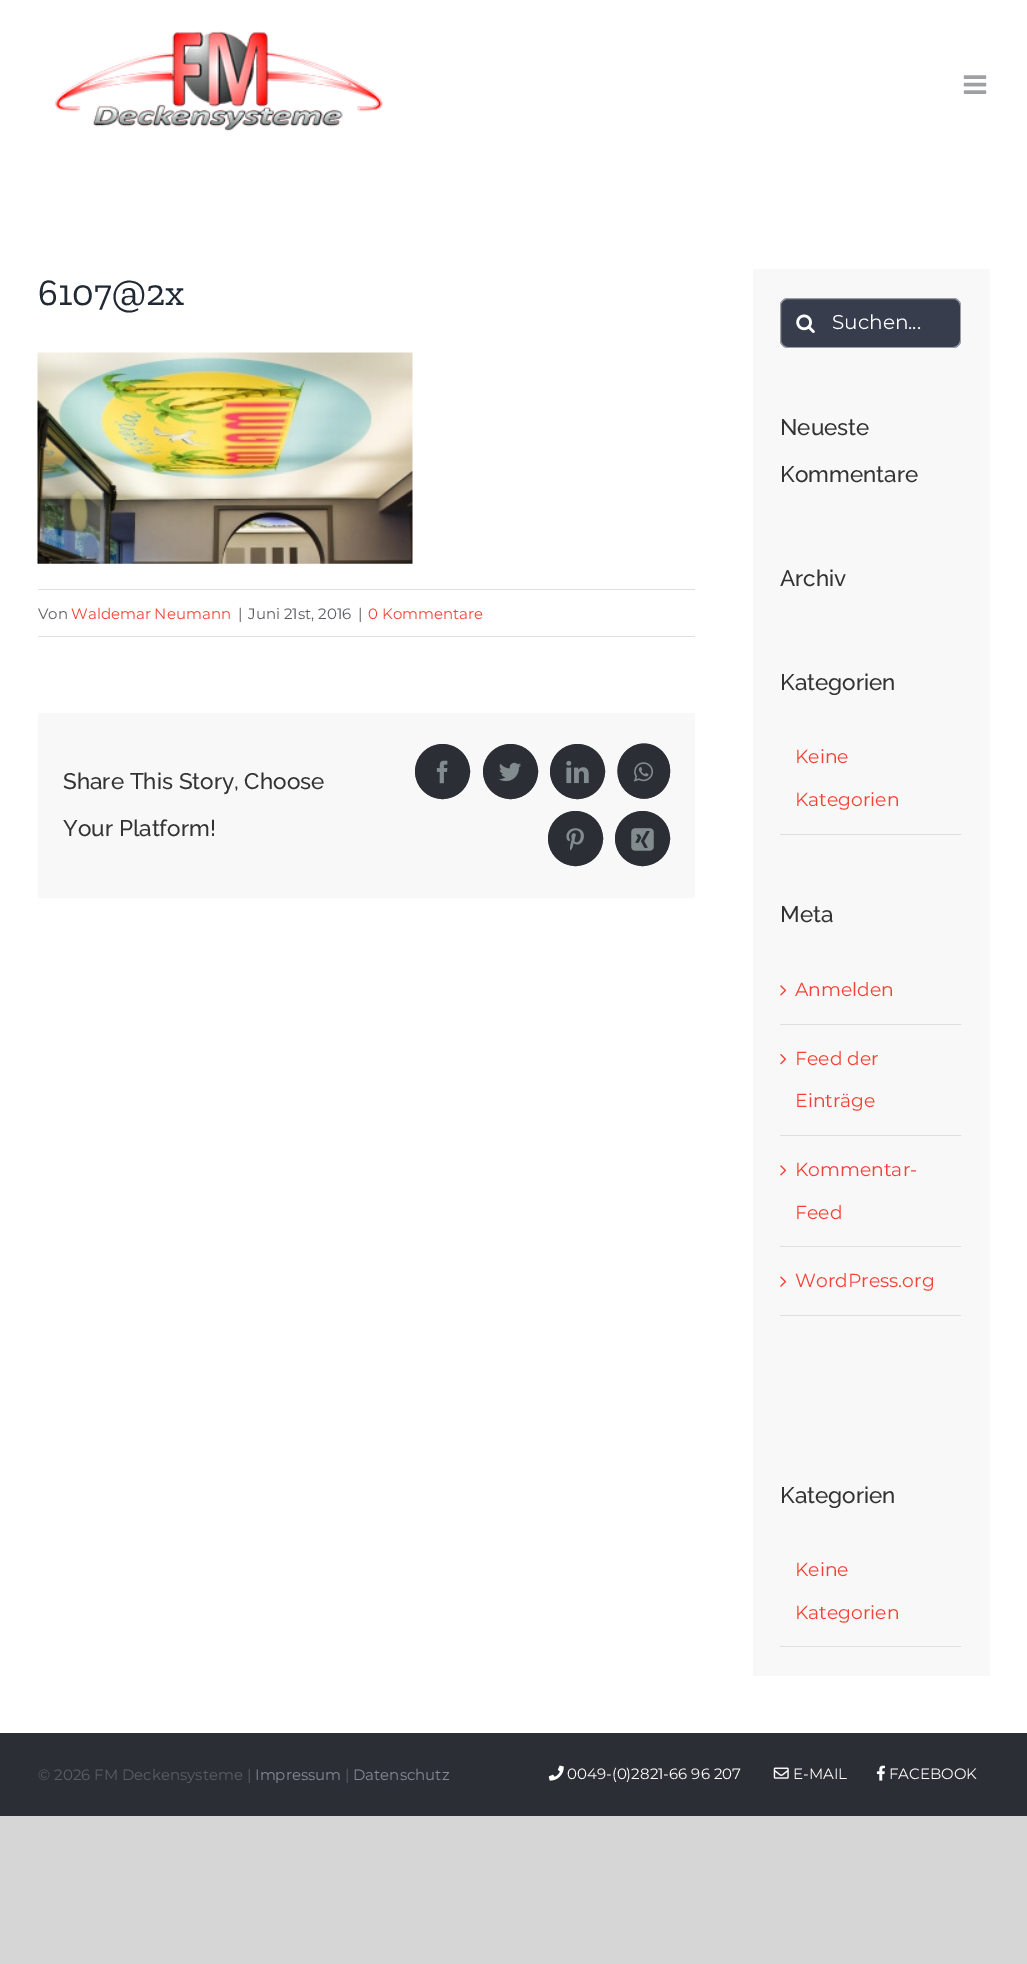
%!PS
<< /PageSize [1027 1964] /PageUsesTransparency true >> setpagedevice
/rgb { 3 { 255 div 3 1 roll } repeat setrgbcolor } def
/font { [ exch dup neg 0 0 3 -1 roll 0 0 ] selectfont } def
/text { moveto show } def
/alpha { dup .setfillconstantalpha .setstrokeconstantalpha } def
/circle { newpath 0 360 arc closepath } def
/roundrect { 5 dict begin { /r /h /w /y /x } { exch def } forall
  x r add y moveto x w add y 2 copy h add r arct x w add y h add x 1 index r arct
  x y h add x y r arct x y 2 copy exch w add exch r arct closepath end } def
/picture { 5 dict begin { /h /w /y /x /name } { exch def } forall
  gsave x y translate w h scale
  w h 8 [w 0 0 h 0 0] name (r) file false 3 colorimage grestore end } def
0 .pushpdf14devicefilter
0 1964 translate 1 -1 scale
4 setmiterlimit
215 214 214 rgb
0 0 1027 1964 rectfill
255 255 255 rgb
0 0 1027 1733 rectfill
(img_01.rgb) 55 31 328 100 picture
(img_02.rgb) 963 75 24 19 picture
(img_03.rgb) 37 352 376 212 picture
224 222 222 rgb
38 589 657 1 rectfill
38 636 657 1 rectfill
248 248 248 rgb
38 713 657 185 rectfill
43 46 53 rgb
442.5 771.5 27 circle gsave fill grestore
stroke
(img_04.rgb) 436 760 12 24 picture
510.5 771.5 27 circle gsave fill grestore
stroke
(img_05.rgb) 499 762 22 20 picture
577.5 771.5 27 circle gsave fill grestore
stroke
(img_06.rgb) 566 760 23 24 picture
644 743.5 moveto 14.5 0 26 12.5 26 27.5 rcurveto 0 15 -11.5 27.5 -26 27.5 rcurveto -14.5 0 -26 -12.5 -26 -27.5 rcurveto 0 -15 11.5 -27.5 26 -27.5 rcurveto closepath fill
1.2 setlinewidth
644 744.5 moveto 14 0 25.5 12 25.5 26.5 rcurveto 0 15 -11.5 27 -25.5 27 rcurveto -14.5 0 -26 -12 -26 -27 rcurveto 0 -14.5 11.5 -26.5 26 -26.5 rcurveto closepath stroke
(img_07.rgb) 633 762 20 20 picture
575.5 838.5 27 circle gsave fill grestore
1 setlinewidth
stroke
(img_08.rgb) 566 828 18 23 picture
642.5 838.5 27 circle gsave fill grestore
stroke
(img_09.rgb) 631 828 23 23 picture
248 248 248 rgb
753 269 237 1407 rectfill
55 61 77 rgb
780 298 181 50 8 roundrect fill
0.5 alpha
255 255 255 rgb
780.5 298.5 180 49 7.5 roundrect stroke
1 alpha
(img_10.rgb) 796 314 19 19 picture
224 222 222 rgb
780 834 181 1 rectfill
780 1024 181 1 rectfill
(img_11.rgb) 780 985 7 11 picture
780 1135 181 1 rectfill
(img_12.rgb) 780 1054 7 11 picture
780 1246 181 1 rectfill
(img_11.rgb) 780 1165 7 11 picture
780 1315 181 1 rectfill
(img_13.rgb) 780 1276 7 11 picture
780 1646 181 1 rectfill
43 46 53 rgb
0 1733 1027 83 rectfill
(img_14.rgb) 548 1765 16 16 picture
(img_15.rgb) 773 1767 16 12 picture
(img_16.rgb) 876 1765 9 16 picture
/ZillaSlab-Regular 37.5 font
33 41 52 rgb
(6107@2x) 38 305 text
/Montserrat-Regular 15 font
90 93 98 rgb
(Von) 38 619 text
244 67 54 rgb
(Waldemar Neumann) 71 619 text
90 93 98 rgb
(|) 238 619 text
(Juni 21st, 2016) 248 619 text
(|) 358 619 text
244 67 54 rgb
(0 Kommentare) 368 619 text
/Raleway-Thin 22.5 font
51 51 51 rgb
(Share This Story, Choose) 63 789 text
(Your Platform!) 63 836 text
/Montserrat-Regular 20 font
255 255 255 rgb
(Suchen...) 832 329 text
/Raleway-Thin 22.5 font
51 51 51 rgb
(Neueste) 780 435 text
(Kommentare) 780 482 text
(Archiv) 780 586 text
(Kategorien) 780 690 text
/Montserrat-Regular 18.75 font
244 67 54 rgb
(Keine) 795 763 text
(Kategorien) 795 806 text
/Raleway-Thin 22.5 font
51 51 51 rgb
(Meta) 780 922 text
/Montserrat-Regular 18.75 font
244 67 54 rgb
(Anmelden) 795 996 text
(Feed der) 795 1065 text
(Einträge) 795 1107 text
(Kommentar-) 795 1176 text
(Feed) 795 1219 text
(WordPress.org) 795 1287 text
/Raleway-Thin 22.5 font
51 51 51 rgb
(Kategorien) 780 1503 text
/Montserrat-Regular 18.75 font
244 67 54 rgb
(Keine) 795 1576 text
(Kategorien) 795 1619 text
/Montserrat-Regular 15 font
90 93 98 rgb
(© 2026 FM Deckensysteme |) 38 1780 text
134 138 146 rgb
(Impressum) 255 1780 text
90 93 98 rgb
(|) 345 1780 text
134 138 146 rgb
(Datenschutz) 353 1780 text
255 255 255 rgb
(0049-\(0\)2821-66 96 207) 567 1779 text
(E-MAIL) 793 1779 text
(FACEBOOK) 889 1779 text
.poppdf14devicefilter showpage
